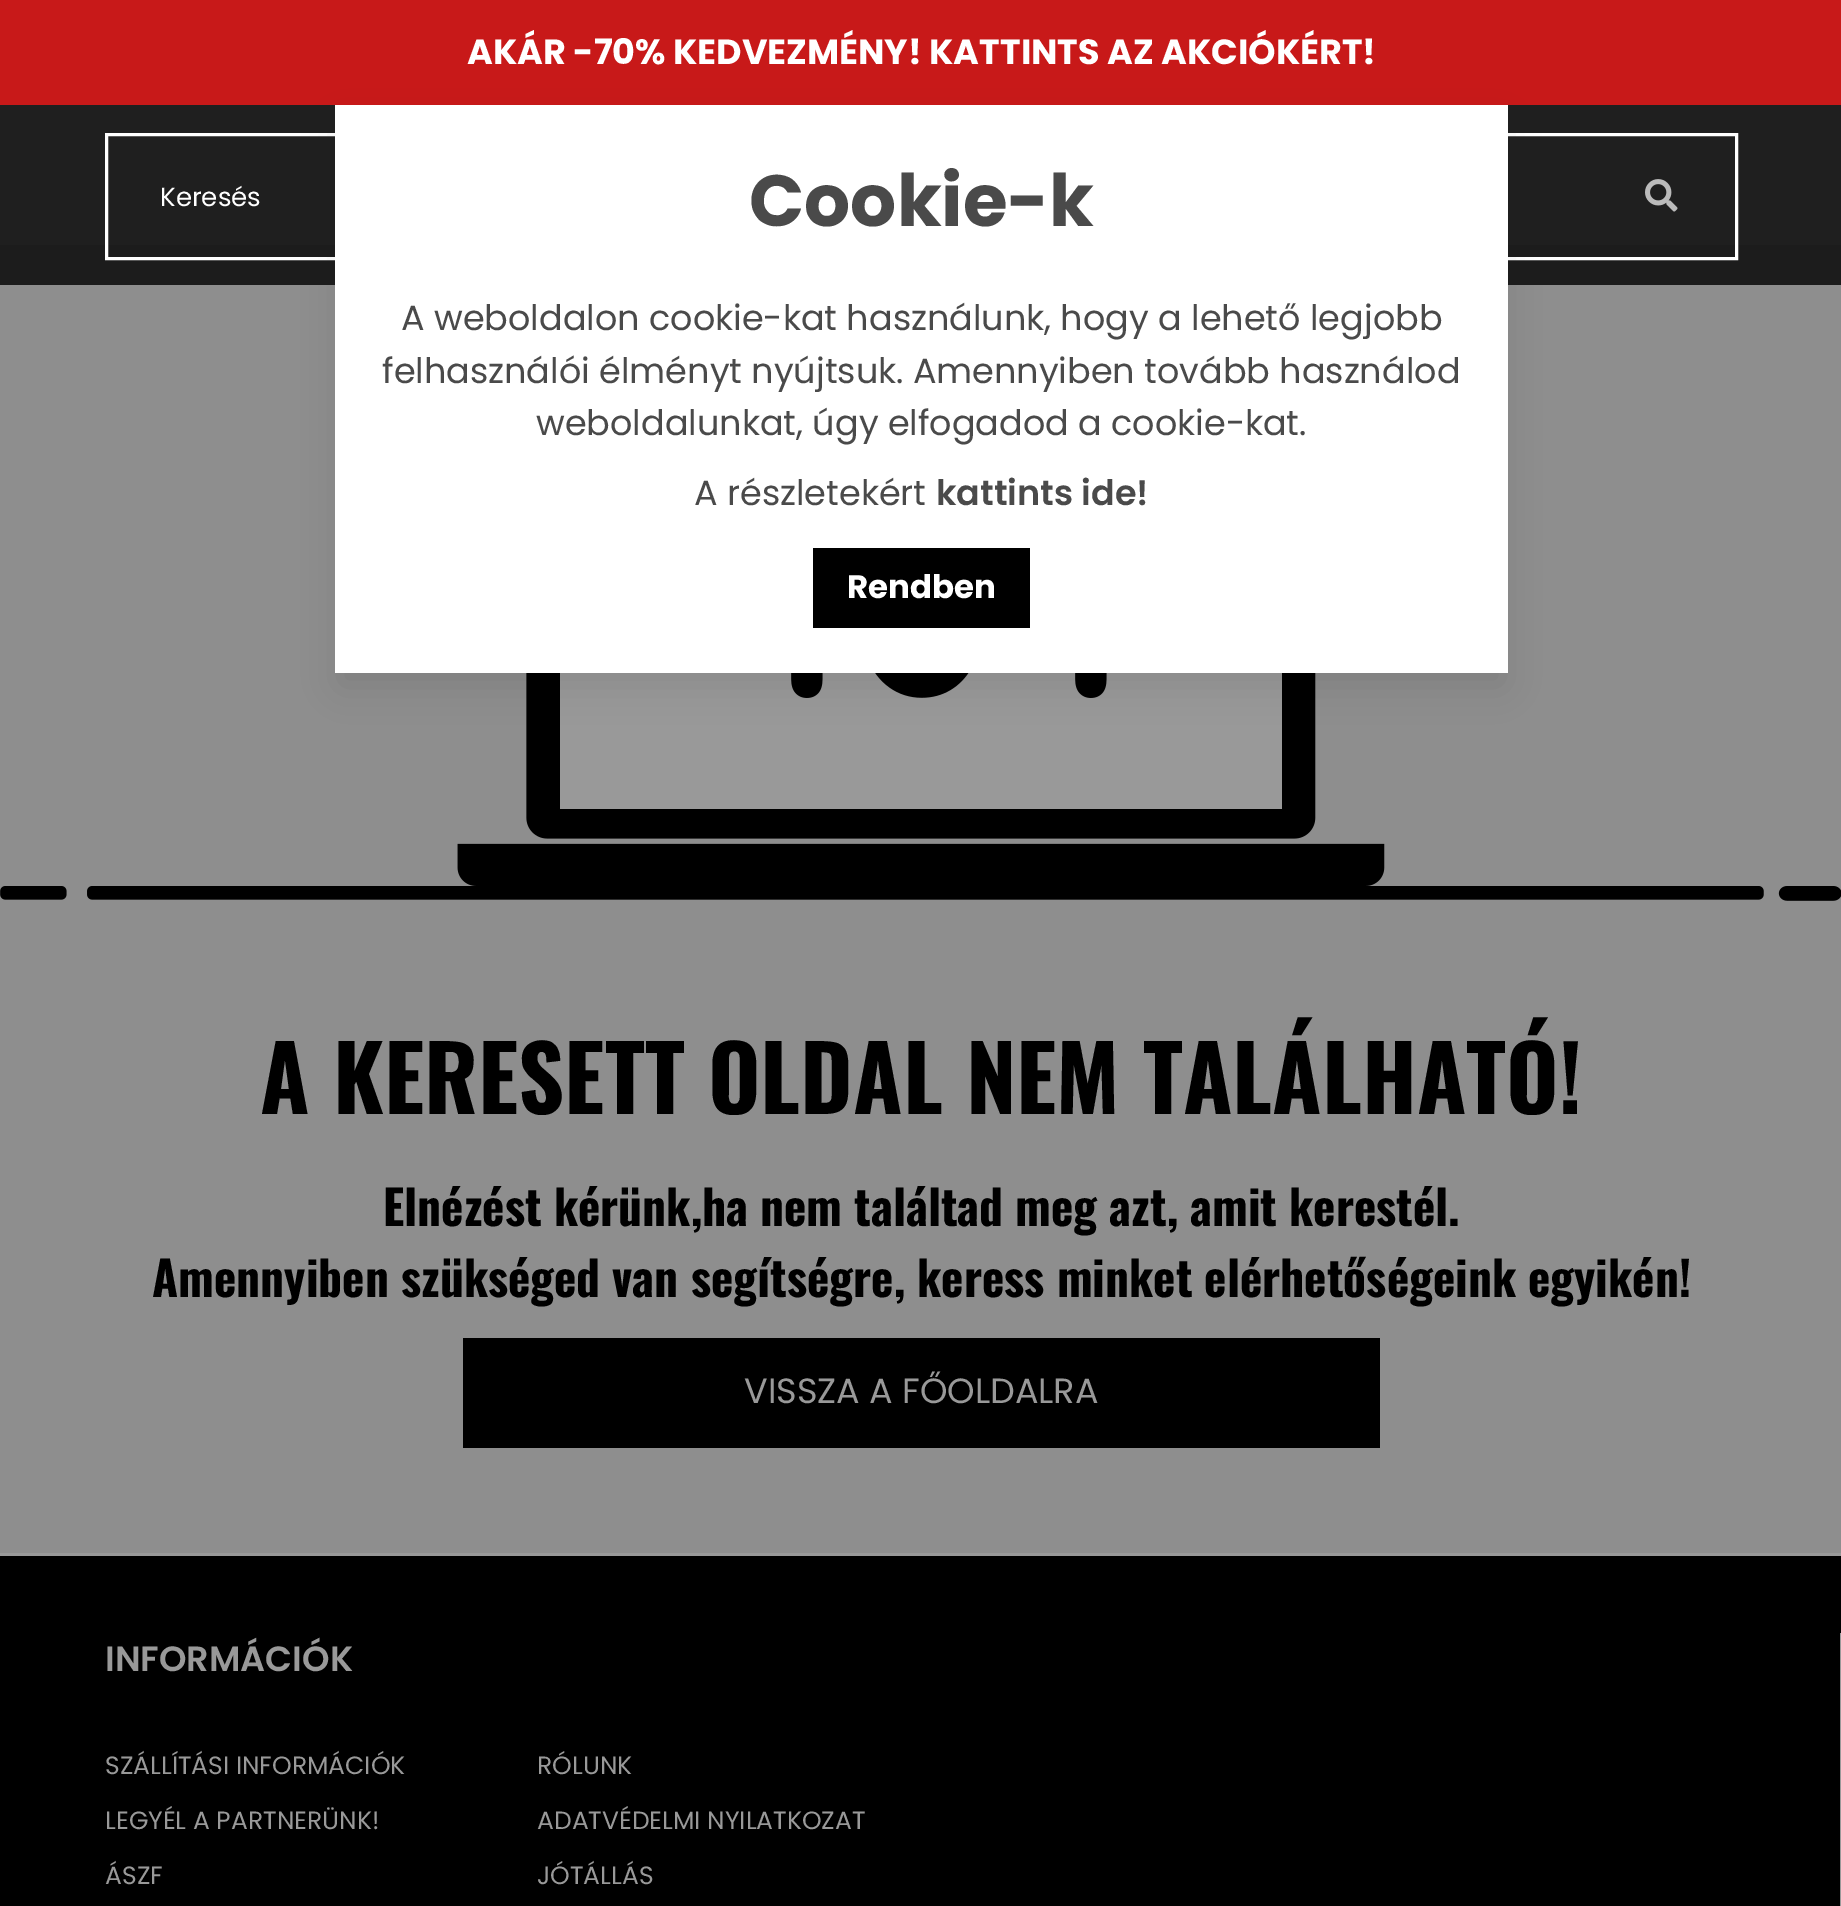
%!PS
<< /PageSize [1841 1906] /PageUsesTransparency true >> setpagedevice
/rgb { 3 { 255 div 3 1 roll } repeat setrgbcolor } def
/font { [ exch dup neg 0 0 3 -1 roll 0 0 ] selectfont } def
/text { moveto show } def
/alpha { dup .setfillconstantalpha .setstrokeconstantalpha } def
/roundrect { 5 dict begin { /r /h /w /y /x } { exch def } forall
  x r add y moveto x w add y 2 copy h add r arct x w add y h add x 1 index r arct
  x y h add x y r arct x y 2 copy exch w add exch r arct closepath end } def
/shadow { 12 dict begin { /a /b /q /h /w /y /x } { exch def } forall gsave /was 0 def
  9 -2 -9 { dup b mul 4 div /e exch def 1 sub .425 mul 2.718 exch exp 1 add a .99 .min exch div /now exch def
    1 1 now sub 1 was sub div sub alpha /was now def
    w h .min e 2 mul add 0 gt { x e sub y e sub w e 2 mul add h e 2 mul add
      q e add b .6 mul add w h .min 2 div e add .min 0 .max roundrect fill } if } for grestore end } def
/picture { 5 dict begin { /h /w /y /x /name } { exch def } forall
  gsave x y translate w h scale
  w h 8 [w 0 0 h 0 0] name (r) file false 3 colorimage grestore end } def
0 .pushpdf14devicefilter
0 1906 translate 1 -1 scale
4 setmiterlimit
31 31 31 rgb
0 0 1841 1906 rectfill
200 25 25 rgb
0 0 1841 105 rectfill
28 28 28 rgb
0 245 1841 40 rectfill
255 255 255 rgb
3 setlinewidth
106.5 134.5 1630 124 rectstroke
(img_01.rgb) 1645 179 33 33 picture
142 142 142 rgb
0 285 1841 1268 rectfill
(img_02.rgb) 0 673 1841 228 picture
0 0 0 rgb
340 128 1163 557 0 17.5 0.1 shadow
255 255 255 rgb
335 105 1173 568 rectfill
0 0 0 rgb
813 548 217 80 rectfill
463 1338 917 110 rectfill
0 1556 1841 350 rectfill
153 153 153 rgb
0 1553 1841 3 rectfill
1840 1633 1 273 rectfill
/Poppins-Bold 35 font
255 255 255 rgb
(AKÁR -70% KEDVEZMÉNY! KATTINTS AZ AKCIÓKÉRT!) 467 64 text
/Poppins-Regular 26 font
(Keresés) 160 206 text
/Poppins-Bold 72.5 font
74 74 74 rgb
(Cookie-k) 749 226 text
/Poppins-Regular 35 font
(A weboldalon cookie-kat használunk, hogy a lehető legjobb) 401 330 text
(felhasználói élményt nyújtsuk. Amennyiben tovább használod) 382 383 text
(weboldalunkat, úgy elfogadod a cookie-kat.) 536 435 text
(A részletekért) 694 505 text
/Poppins-SemiBold 35 font
(kattints ide!) 936 505 text
/Poppins-Bold 32.5 font
255 255 255 rgb
(Rendben) 847 598 text
/Oswald-Bold 90 font
0 0 0 rgb
(A KERESETT OLDAL NEM TALÁLHATÓ!) 260 1114 text
/Oswald-Bold 47.5 font
(Elnézést kérünk,ha nem találtad meg azt, amit kerestél.) 383 1226 text
(Amennyiben szükséged van segítségre, keress minket elérhetőségeink egyikén!) 152 1297 text
/Poppins-Regular 35 font
153 153 153 rgb
(VISSZA A FŐOLDALRA) 744 1403 text
/Poppins-SemiBold 35 font
(INFORMÁCIÓK) 105 1671 text
/Poppins-Regular 25 font
(SZÁLLÍTÁSI INFORMÁCIÓK) 105 1774 text
(RÓLUNK) 537 1774 text
(LEGYÉL A PARTNERÜNK!) 105 1829 text
(ADATVÉDELMI NYILATKOZAT) 537 1829 text
(ÁSZF) 105 1884 text
(JÓTÁLLÁS) 537 1884 text
.poppdf14devicefilter showpage
